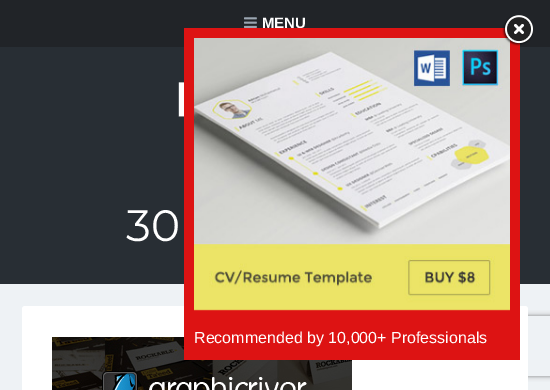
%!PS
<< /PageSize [550 390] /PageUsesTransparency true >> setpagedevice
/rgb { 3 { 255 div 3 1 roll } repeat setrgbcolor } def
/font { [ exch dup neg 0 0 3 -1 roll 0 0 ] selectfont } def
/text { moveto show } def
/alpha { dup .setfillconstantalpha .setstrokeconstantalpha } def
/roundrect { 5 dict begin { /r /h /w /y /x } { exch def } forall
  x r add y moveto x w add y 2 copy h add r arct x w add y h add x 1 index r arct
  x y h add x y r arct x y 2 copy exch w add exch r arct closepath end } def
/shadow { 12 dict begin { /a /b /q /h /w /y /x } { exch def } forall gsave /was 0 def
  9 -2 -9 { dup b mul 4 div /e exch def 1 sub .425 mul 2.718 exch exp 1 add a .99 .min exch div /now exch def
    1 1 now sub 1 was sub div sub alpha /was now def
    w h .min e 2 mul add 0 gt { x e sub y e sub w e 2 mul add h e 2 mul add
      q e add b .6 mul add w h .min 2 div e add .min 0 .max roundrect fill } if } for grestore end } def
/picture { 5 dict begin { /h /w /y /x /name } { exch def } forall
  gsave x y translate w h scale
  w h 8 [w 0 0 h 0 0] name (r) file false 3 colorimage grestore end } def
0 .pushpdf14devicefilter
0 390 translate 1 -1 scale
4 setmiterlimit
238 242 245 rgb
0 0 550 390 rectfill
40 46 52 rgb
0 47 550 237 rectfill
33 36 40 rgb
0 0 550 47 rectfill
(img_01.rgb) 244 17 13 11 picture
(img_02.rgb) 178 82 6 35 picture
gsave
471 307 moveto 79 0 rlineto 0 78 rlineto -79 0 rlineto closepath 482 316 moveto 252 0 rlineto 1 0 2 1 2 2 rcurveto 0 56 rlineto 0 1 -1 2 -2 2 rcurveto -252 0 rlineto -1 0 -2 -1 -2 -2 rcurveto 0 -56 rlineto 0 -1 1 -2 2 -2 rcurveto closepath eoclip newpath
128 128 128 rgb
480 316 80 60 2 2.5 1 shadow
grestore
255 255 255 rgb
22 306 506 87 3 roundrect fill
(img_03.rgb) 52 337 300 53 picture
/Arimo-Bold 15 font
(MENU) 262 28 text
/Montserrat-Regular 44 font
(30) 126 241 text
221 19 19 rgb
184 28 336 332 rectfill
(img_05.rgb) 194 38 316 273 picture
(img_04.rgb) 502 15 31 31 picture
/Arimo-Regular 16 font
255 255 255 rgb
(Recommended by 10,000+ Professionals) 194 343 text
.poppdf14devicefilter showpage
